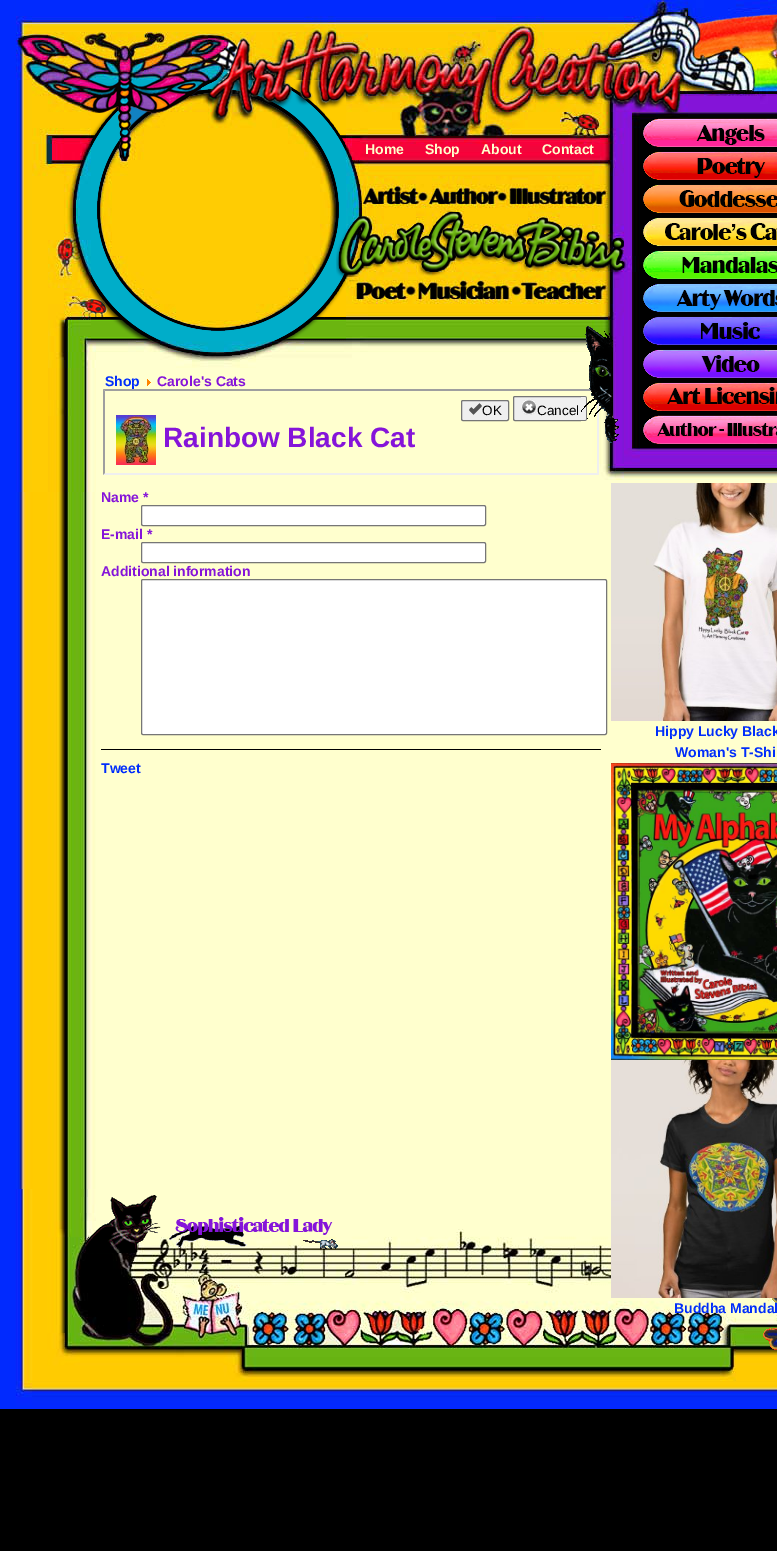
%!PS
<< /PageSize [777 1551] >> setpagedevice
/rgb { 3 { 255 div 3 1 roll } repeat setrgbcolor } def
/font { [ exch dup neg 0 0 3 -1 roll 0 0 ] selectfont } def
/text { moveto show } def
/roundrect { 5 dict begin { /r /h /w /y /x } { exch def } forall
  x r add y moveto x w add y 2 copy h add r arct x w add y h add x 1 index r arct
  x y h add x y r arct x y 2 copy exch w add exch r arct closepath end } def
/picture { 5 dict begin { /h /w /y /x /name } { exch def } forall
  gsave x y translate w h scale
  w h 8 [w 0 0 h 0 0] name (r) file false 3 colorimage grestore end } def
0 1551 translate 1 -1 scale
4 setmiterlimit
0 0 0 rgb
0 0 777 1551 rectfill
(img_01.rgb) 0 0 777 1189 picture
(img_02.rgb) 16 0 761 492 picture
(img_04.rgb) 91 80 255 261 picture
(img_07.rgb) 643 118 134 29 picture
(img_03.rgb) 203 35 478 90 picture
(img_05.rgb) 336 186 289 113 picture
159 159 159 rgb
103 389 moveto 496 0 rlineto -2 2 rlineto -492 0 rlineto closepath fill
239 239 239 rgb
599 389 moveto 0 86 rlineto -2 -2 rlineto 0 -82 rlineto closepath fill
513.5 396.5 73 24 1.5 roundrect gsave fill grestore
118 118 118 rgb
stroke
(img_06.rgb) 581 326 38 117 picture
(img_08.rgb) 643 151 134 29 picture
(img_09.rgb) 643 184 134 29 picture
(img_10.rgb) 643 217 134 29 picture
(img_11.rgb) 643 250 134 29 picture
(img_12.rgb) 643 283 134 29 picture
(img_13.rgb) 643 316 134 29 picture
(img_14.rgb) 643 349 134 29 picture
(img_15.rgb) 643 382 134 29 picture
(img_16.rgb) 643 415 134 29 picture
(img_17.rgb) 147 379 4 7 picture
239 239 239 rgb
599 475 moveto -496 0 rlineto 2 -2 rlineto 492 0 rlineto closepath fill
159 159 159 rgb
103 475 moveto 0 -86 rlineto 2 2 rlineto 0 82 rlineto closepath fill
239 239 239 rgb
461.5 400.5 47 20 1.5 roundrect gsave fill grestore
118 118 118 rgb
stroke
(img_18.rgb) 469 403 13 12 picture
(img_19.rgb) 521 399 16 16 picture
(img_20.rgb) 116 415 40 50 picture
255 255 255 rgb
141.5 505.5 344 20 1.5 roundrect gsave fill grestore
118 118 118 rgb
stroke
255 255 255 rgb
141.5 542.5 344 20 1.5 roundrect gsave fill grestore
118 118 118 rgb
stroke
255 255 255 rgb
141.5 579.5 465 155 1.5 roundrect gsave fill grestore
118 118 118 rgb
stroke
0 0 0 rgb
101 749 500 1 rectfill
(img_21.rgb) 611 483 166 238 picture
(img_22.rgb) 611 763 166 297 picture
(img_24.rgb) 0 1189 777 220 picture
(img_23.rgb) 611 1060 166 238 picture
(img_26.rgb) 169 1226 169 23 picture
(img_25.rgb) 86 1195 247 58 picture
(img_27.rgb) 763 1298 14 52 picture
/LiberationSans-Bold 14 font
255 255 204 rgb
(Home) 365 154 text
(Shop) 425 154 text
(About) 481 154 text
(Contact) 542 154 text
0 45 251 rgb
(Shop) 105 386 text
133 20 217 rgb
(Carole's Cats) 157 386 text
/LiberationSans-Regular 13.5 font
0 0 0 rgb
(OK) 482 415 text
(Cancel) 537 415 text
/LiberationSans-Bold 28 font
133 20 217 rgb
(Rainbow Black Cat) 163 447 text
/LiberationSans-Bold 14 font
(Name *) 101 502 text
(E-mail *) 101 539 text
(Additional information) 101 576 text
0 45 251 rgb
(Tweet) 101 773 text
(Hippy Lucky Black) 655 736 text
(Woman's T-Shi) 675 757 text
(Buddha Mandal) 674 1313 text
showpage
